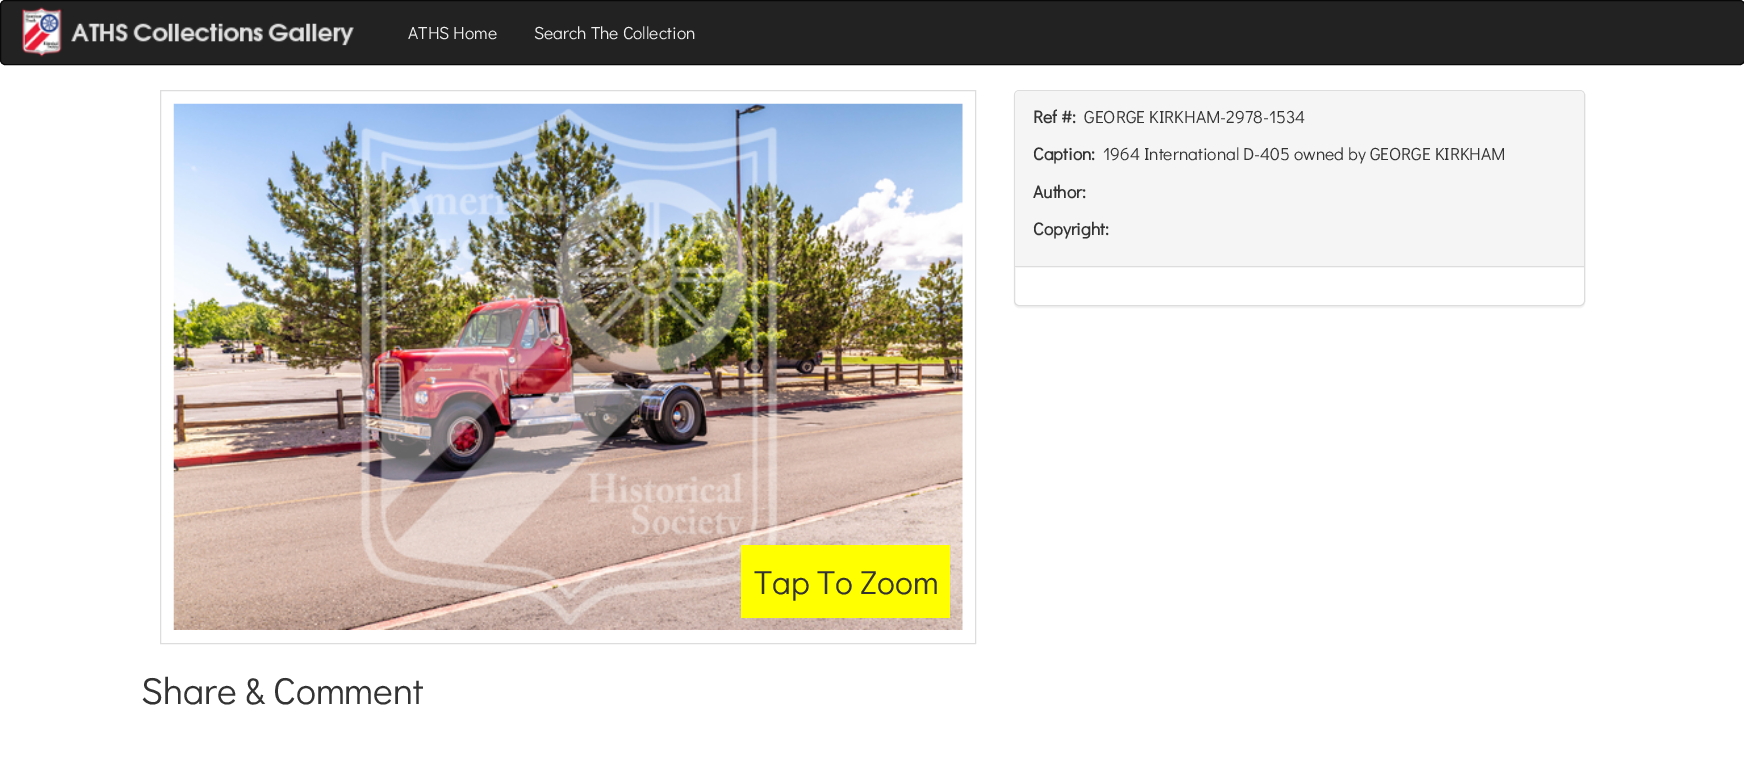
%!PS
<< /PageSize [1744 758] /PageUsesTransparency true >> setpagedevice
/rgb { 3 { 255 div 3 1 roll } repeat setrgbcolor } def
/font { [ exch dup neg 0 0 3 -1 roll 0 0 ] selectfont } def
/text { moveto show } def
/alpha { dup .setfillconstantalpha .setstrokeconstantalpha } def
/roundrect { 5 dict begin { /r /h /w /y /x } { exch def } forall
  x r add y moveto x w add y 2 copy h add r arct x w add y h add x 1 index r arct
  x y h add x y r arct x y 2 copy exch w add exch r arct closepath end } def
/shadow { 12 dict begin { /a /b /q /h /w /y /x } { exch def } forall gsave /was 0 def
  9 -2 -9 { dup b mul 4 div /e exch def 1 sub .425 mul 2.718 exch exp 1 add a .99 .min exch div /now exch def
    1 1 now sub 1 was sub div sub alpha /was now def
    w h .min e 2 mul add 0 gt { x e sub y e sub w e 2 mul add h e 2 mul add
      q e add b .6 mul add w h .min 2 div e add .min 0 .max roundrect fill } if } for grestore end } def
/picture { 5 dict begin { /h /w /y /x /name } { exch def } forall
  gsave x y translate w h scale
  w h 8 [w 0 0 h 0 0] name (r) file false 3 colorimage grestore end } def
0 .pushpdf14devicefilter
0 758 translate 1 -1 scale
4 setmiterlimit
255 255 255 rgb
0 0 1744 758 rectfill
34 34 34 rgb
0.5 0.5 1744 64 4.5 roundrect gsave fill grestore
8 8 8 rgb
stroke
(img_01.rgb) 22 7 332 50 picture
0 0 0 rgb
1014 91 571 217 5 0.5 0.05 shadow
255 255 255 rgb
1014.5 90.5 570 215 4.5 roundrect gsave fill grestore
221 221 221 rgb
stroke
245 245 245 rgb
1019 91 moveto 561 0 rlineto 2 0 4 2 4 4 rcurveto 0 173 rlineto -569 0 rlineto 0 -173 rlineto 0 -2 2 -4 4 -4 rcurveto closepath fill
221 221 221 rgb
1015 266 569 1 rectfill
160.5 90.5 815 553 rectstroke
(img_02.rgb) 173 103 790 527 picture
255 255 0 rgb
741 545 209 73 rectfill
/DidactGothic-Regular 17.5 font
238 238 238 rgb
(ATHS Home) 408 39 text
(Search The Collection) 534 39 text
/DidactGothic-Bold 17.5 font
51 51 51 rgb
(Ref #:) 1033 123 text
/DidactGothic-Regular 17.5 font
(GEORGE KIRKHAM-2978-1534) 1084 123 text
/DidactGothic-Bold 17.5 font
(Caption:) 1033 160 text
/DidactGothic-Regular 17.5 font
(1964 International D-405 owned by GEORGE KIRKHAM) 1103 160 text
/DidactGothic-Bold 17.5 font
(Author:) 1033 198 text
(Copyright:) 1033 235 text
/DidactGothic-Regular 33.5 font
(Tap To Zoom) 754 594 text
/DidactGothic-Regular 37.5 font
(Share & Comment) 141 704 text
.poppdf14devicefilter showpage
